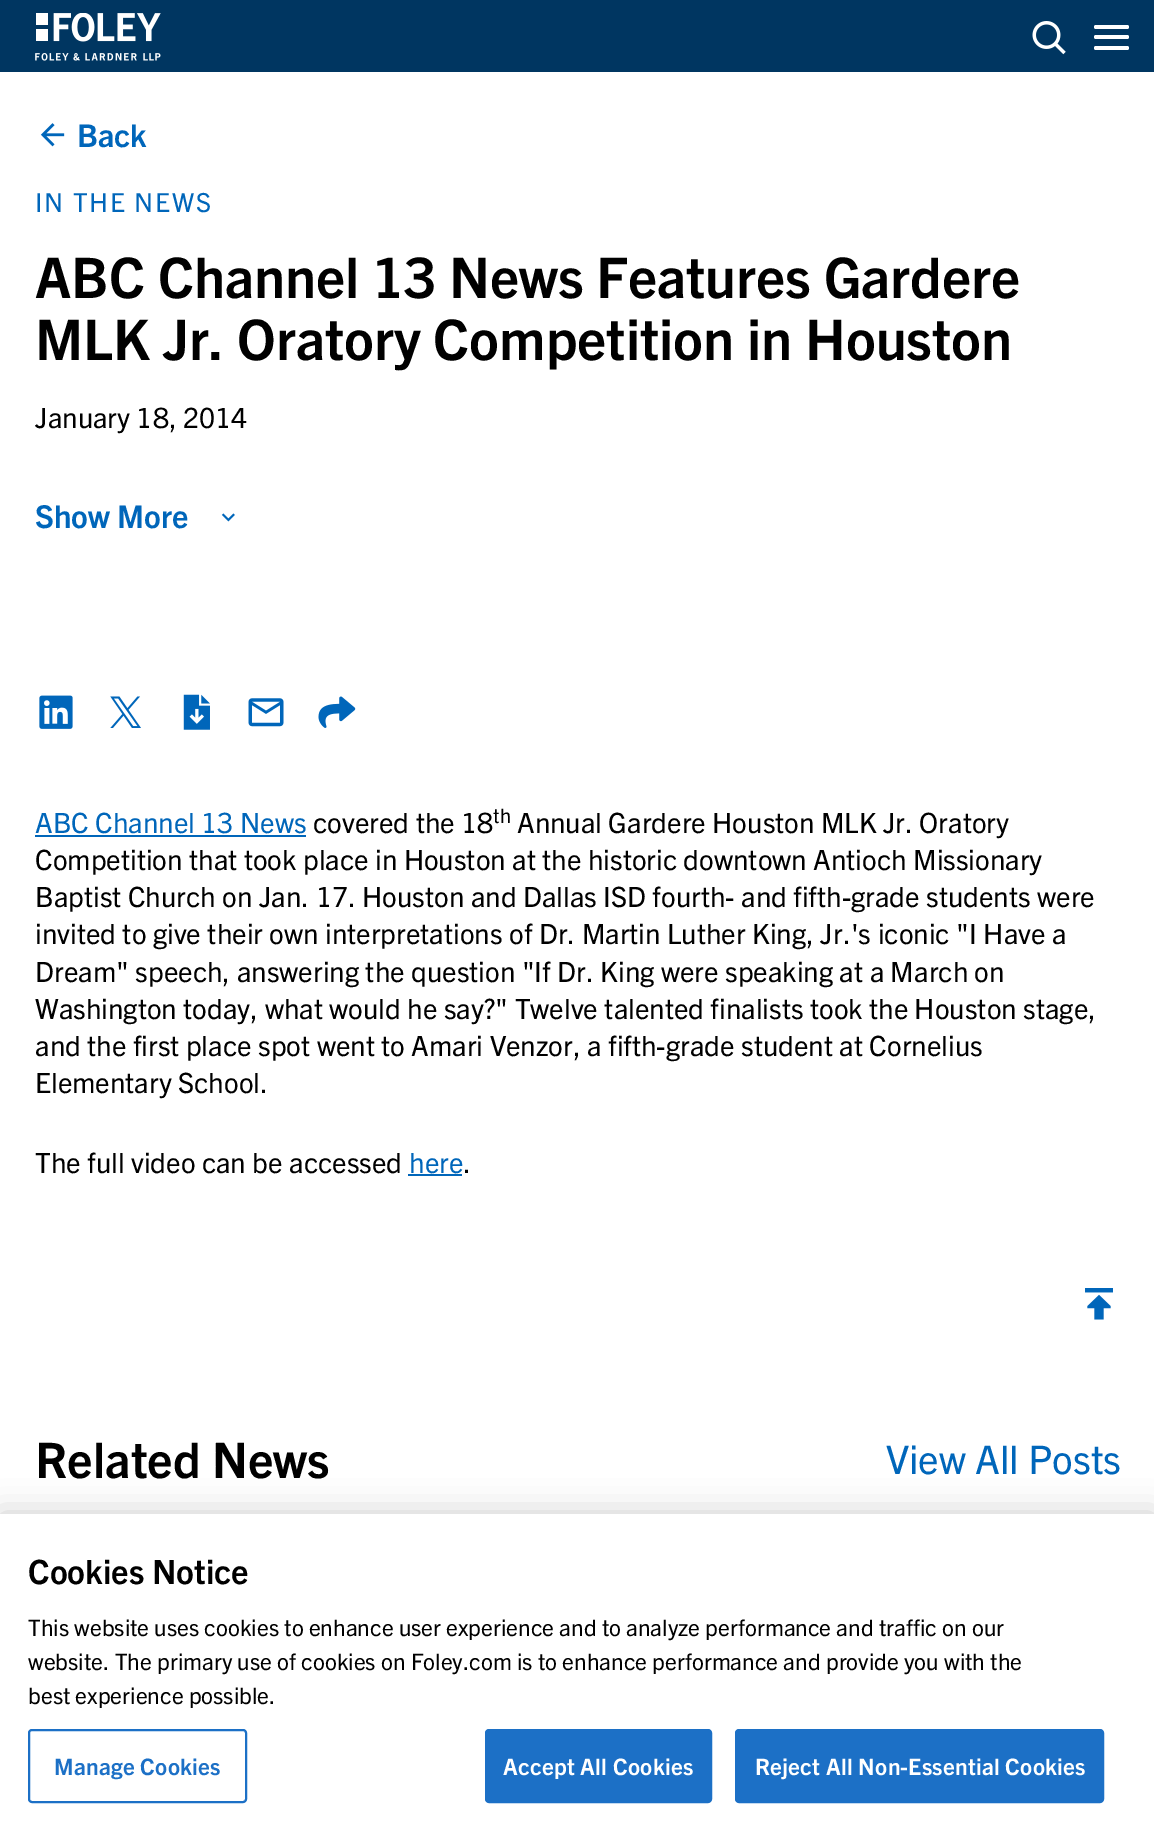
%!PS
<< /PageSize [1154 1835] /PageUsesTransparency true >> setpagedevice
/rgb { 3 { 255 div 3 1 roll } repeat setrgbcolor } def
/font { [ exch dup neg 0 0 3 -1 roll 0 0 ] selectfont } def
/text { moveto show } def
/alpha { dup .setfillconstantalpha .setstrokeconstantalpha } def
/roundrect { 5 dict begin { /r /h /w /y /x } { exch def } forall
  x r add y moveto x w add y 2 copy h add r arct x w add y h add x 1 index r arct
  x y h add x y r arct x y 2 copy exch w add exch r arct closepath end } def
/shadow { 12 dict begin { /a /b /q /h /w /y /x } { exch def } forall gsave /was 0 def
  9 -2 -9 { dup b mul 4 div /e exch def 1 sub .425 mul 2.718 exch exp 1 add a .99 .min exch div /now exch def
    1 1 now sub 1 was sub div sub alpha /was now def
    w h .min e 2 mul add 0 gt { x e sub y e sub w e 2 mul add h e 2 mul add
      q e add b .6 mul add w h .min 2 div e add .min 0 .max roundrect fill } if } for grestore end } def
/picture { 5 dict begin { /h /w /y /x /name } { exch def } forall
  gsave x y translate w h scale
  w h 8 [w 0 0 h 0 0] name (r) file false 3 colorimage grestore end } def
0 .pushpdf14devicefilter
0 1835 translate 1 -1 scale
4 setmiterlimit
255 255 255 rgb
0 0 1154 1835 rectfill
0 54 97 rgb
0 0 1154 72 rectfill
(img_01.rgb) 35 13 126 48 picture
(img_02.rgb) 1032 21 34 34 picture
255 255 255 rgb
1094 25 35 4 2 roundrect fill
1094 35 35 4 2 roundrect fill
1094 46 35 4 2 roundrect fill
(img_03.rgb) 40 123 25 24 picture
(img_04.rgb) 221 513 14 9 picture
(img_05.rgb) 39 695 34 34 picture
(img_06.rgb) 110 696 31 32 picture
(img_07.rgb) 183 694 27 36 picture
(img_08.rgb) 248 698 36 29 picture
(img_09.rgb) 318 696 38 32 picture
(img_10.rgb) 1085 1288 28 32 picture
0 102 186 rgb
35 835 271 2 rectfill
408 1174 54 2 rectfill
0 0 0 rgb
0 1514 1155 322 0 16 0.2 shadow
255 255 255 rgb
0 1514 1154 321 rectfill
28 112 198 rgb
2 setlinewidth
29 1730 217 72 3 roundrect stroke
486 1730 225 72 3 roundrect gsave fill grestore
stroke
736 1730 367 72 3 roundrect gsave fill grestore
stroke
/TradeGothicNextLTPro-Bold 31.5 font
0 102 186 rgb
(Back) 77 147 text
/TradeGothicNextLTPro-Regular 26.25 font
35 212 moveto 1.75 0 (IN THE NEWS) ashow
/TradeGothicNextLTPro-Bold 56 font
0 0 0 rgb
(ABC Channel 13 News Features Gardere) 35 298 text
(MLK Jr. Oratory Competition in Houston) 35 360 text
/TradeGothicNextLTPro-Regular 28 font
(January 18, 2014) 35 428 text
/TradeGothicNextLTPro-Bold 31.5 font
0 102 186 rgb
(Show More) 35 528 text
/TradeGothicNextLTPro-Regular 28 font
(ABC Channel 13 News) 35 833 text
0 0 0 rgb
(covered the 18) 313 833 text
/TradeGothicNextLTPro-Regular 20 font
(th) 493 823 text
/TradeGothicNextLTPro-Regular 28 font
(Annual Gardere Houston MLK Jr. Oratory) 517 833 text
(Competition that took place in Houston at the historic downtown Antioch Missionary) 35 870 text
(Baptist Church on Jan. 17. Houston and Dallas ISD fourth- and fifth-grade students were) 35 907 text
(invited to give their own interpretations of Dr. Martin Luther King, Jr.'s iconic "I Have a) 35 944 text
(Dream" speech, answering the question "If Dr. King were speaking at a March on) 35 982 text
(Washington today, what would he say?" Twelve talented finalists took the Houston stage,) 35 1019 text
(and the first place spot went to Amari Venzor, a fifth-grade student at Cornelius) 35 1056 text
(Elementary School.) 35 1093 text
(The full video can be accessed) 35 1173 text
0 102 186 rgb
(here) 409 1173 text
0 0 0 rgb
(.) 463 1173 text
/TradeGothicNextLTPro-Bold 49 font
(Related News) 35 1478 text
/TradeGothicNextLTPro-Regular 39.5 font
0 102 186 rgb
(View All Posts) 886 1474 text
/TradeGothicNextLTPro-Bold 33.5 font
0 0 0 rgb
(Cookies Notice) 28 1584 text
/TradeGothicNextLTPro-Regular 22.75 font
(This website uses cookies to enhance user experience and to analyze performance and traffic on our) 28 1636 text
(website. The primary use of cookies on Foley.com is to enhance performance and provide you with the) 28 1670 text
(best experience possible.) 28 1704 text
/TradeGothicNextLTPro-Bold 22.75 font
28 112 198 rgb
54 1775 moveto 0.25 0 (Manage Cookies) ashow
255 255 255 rgb
503 1775 moveto 0.25 0 (Accept All Cookies) ashow
755 1775 moveto 0.25 0 (Reject All Non-Essential Cookies) ashow
.poppdf14devicefilter showpage
